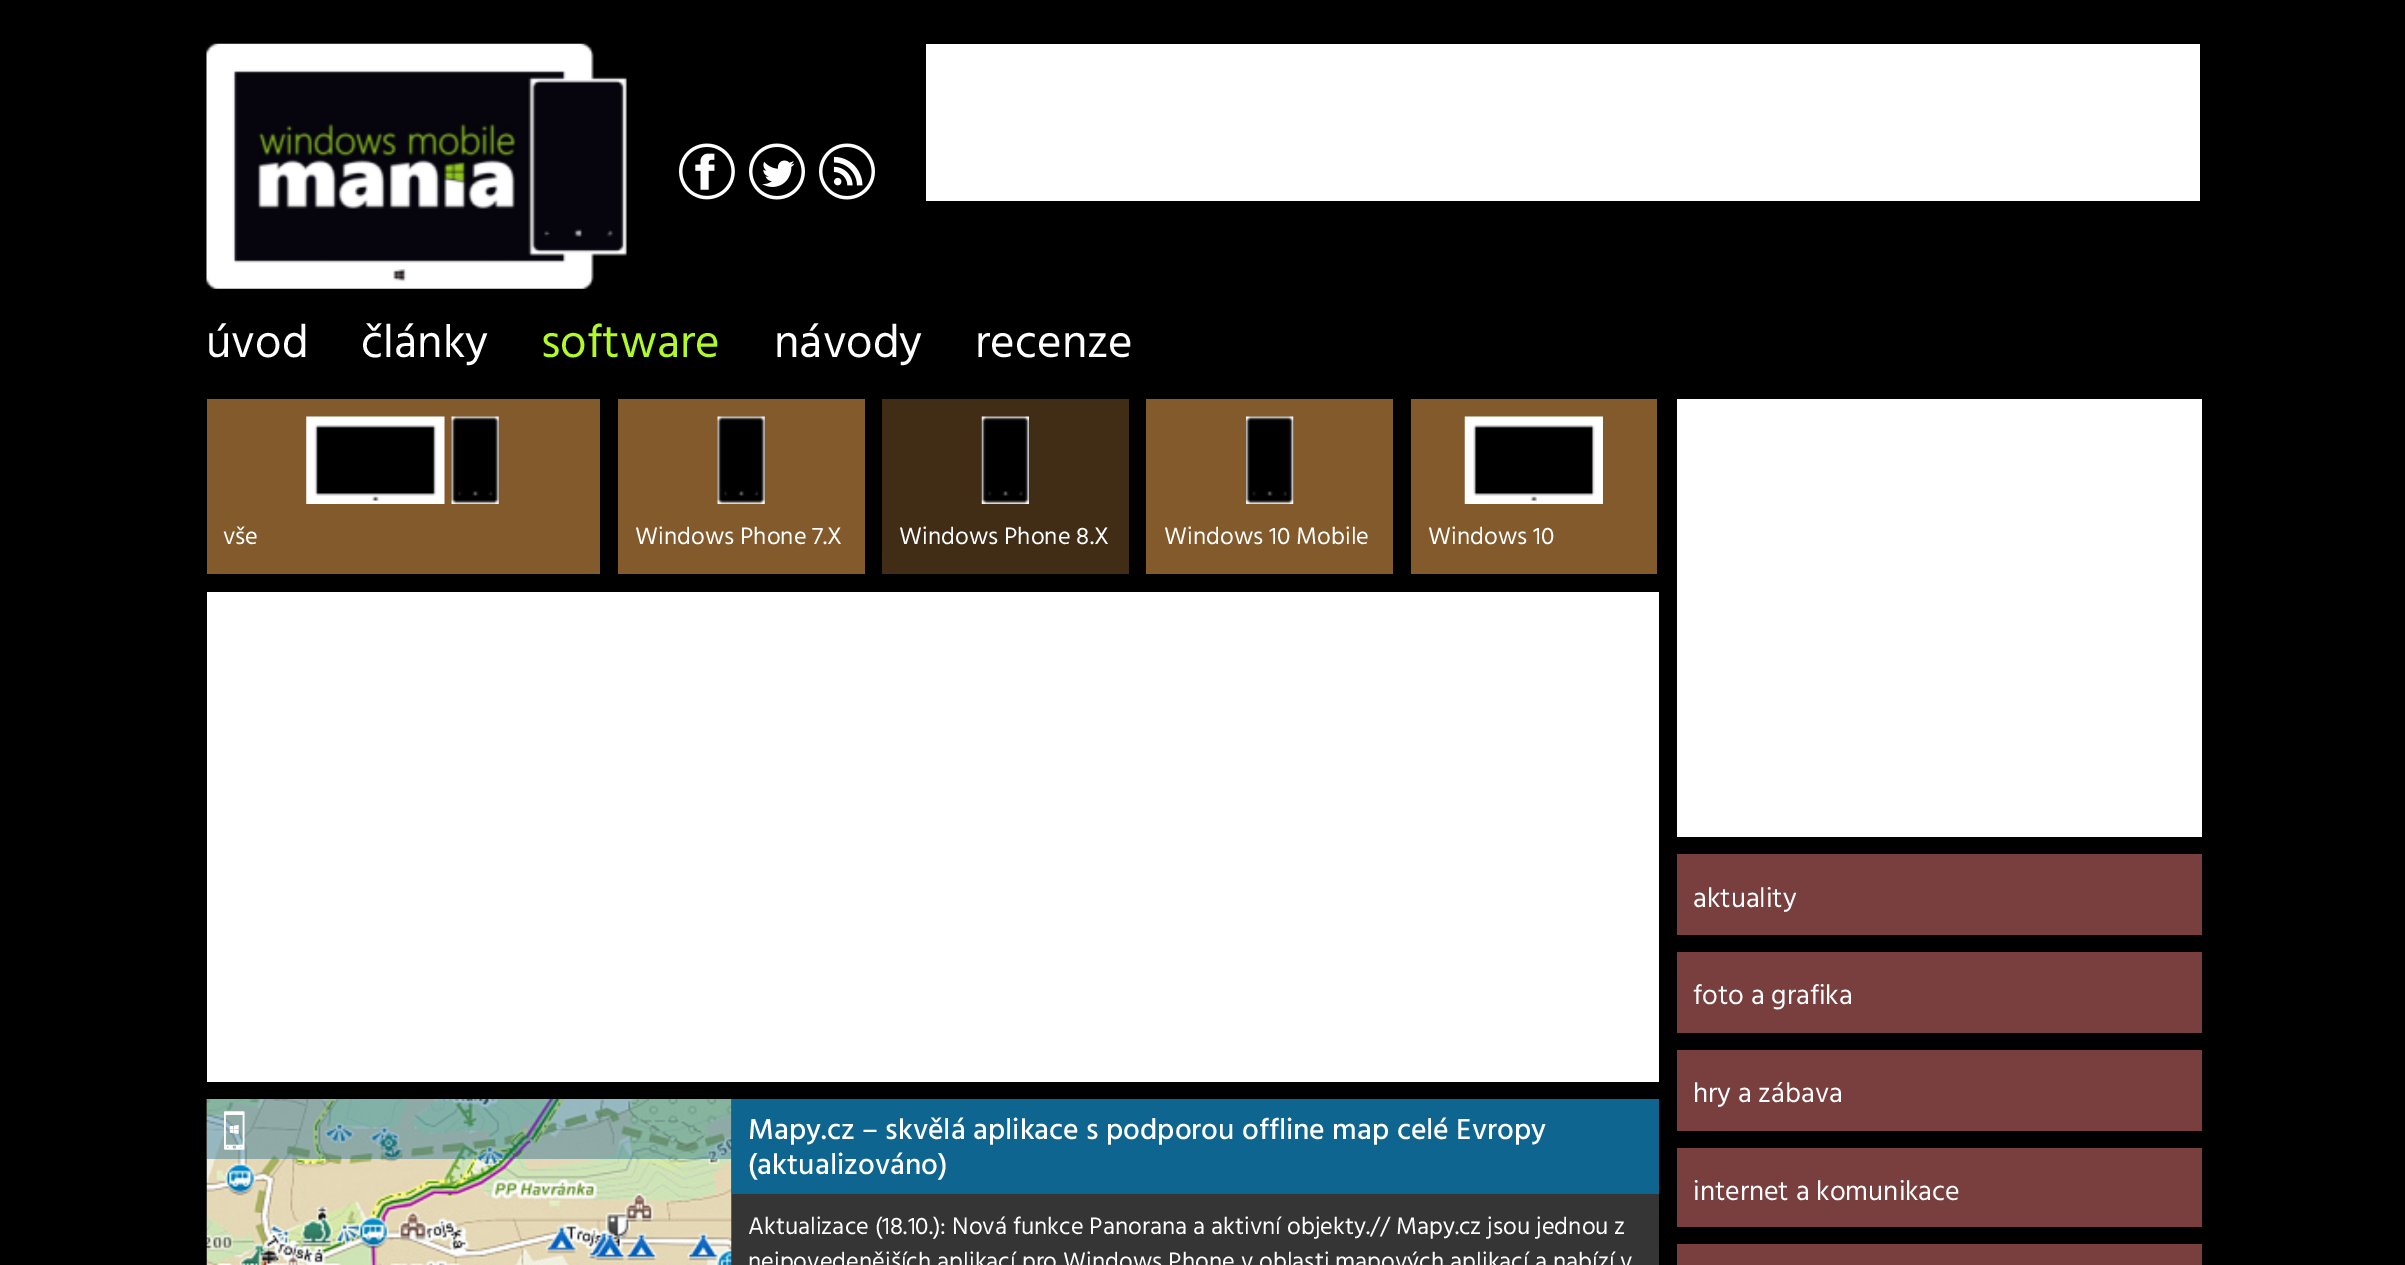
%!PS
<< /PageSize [2405 1265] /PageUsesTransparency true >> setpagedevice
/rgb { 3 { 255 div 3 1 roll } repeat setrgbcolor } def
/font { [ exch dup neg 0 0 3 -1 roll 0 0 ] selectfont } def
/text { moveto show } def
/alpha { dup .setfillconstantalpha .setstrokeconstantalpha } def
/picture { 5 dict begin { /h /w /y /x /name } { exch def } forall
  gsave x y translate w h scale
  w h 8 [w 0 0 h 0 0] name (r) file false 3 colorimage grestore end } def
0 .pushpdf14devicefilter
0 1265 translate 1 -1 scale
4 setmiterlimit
0 0 0 rgb
0 0 2405 1265 rectfill
(img_01.rgb) 206 43 421 246 picture
(img_02.rgb) 679 143 56 57 picture
(img_03.rgb) 749 143 56 57 picture
(img_04.rgb) 819 143 56 57 picture
255 255 255 rgb
926 44 1274 157 rectfill
131 90 44 rgb
207 399 393 175 rectfill
(img_05.rgb) 306 416 139 88 picture
(img_06.rgb) 451 416 48 88 picture
618 399 247 175 rectfill
(img_06.rgb) 717 416 48 88 picture
65 45 21 rgb
882 399 247 175 rectfill
(img_07.rgb) 981 416 48 88 picture
131 90 44 rgb
1146 399 247 175 rectfill
(img_08.rgb) 1246 416 48 88 picture
1411 399 246 175 rectfill
(img_09.rgb) 1464 416 139 88 picture
255 255 255 rgb
207 592 1452 490 rectfill
53 53 53 rgb
731 1099 928 166 rectfill
(img_10.rgb) 206 1099 526 166 picture
0.4 alpha
14 101 144 rgb
207 1099 525 60 rectfill
1 alpha
(img_11.rgb) 224 1111 21 39 picture
732 1099 927 95 rectfill
255 255 255 rgb
1677 399 525 438 rectfill
121 62 62 rgb
1677 854 525 81 rectfill
1677 952 525 81 rectfill
1677 1050 525 81 rectfill
1677 1148 525 79 rectfill
1677 1244 525 21 rectfill
/Hind-Regular 47 font
255 255 255 rgb
(úvod) 206 357 text
(články) 361 357 text
177 250 39 rgb
(software) 541 357 text
255 255 255 rgb
(návody) 774 357 text
(recenze) 975 357 text
/Hind-Regular 24.5 font
(vše) 223 544 text
(Windows Phone 7.X) 635 544 text
(Windows Phone 8.X) 899 544 text
(Windows 10 Mobile) 1164 544 text
(Windows 10) 1428 544 text
/Hind-Medium 29.75 font
(Mapy.cz – skvělá aplikace s podporou offline map celé Evropy) 748 1139 text
(\(aktualizováno\)) 748 1174 text
/Hind-Regular 24.5 font
(Aktualizace \(18.10.\): Nová funkce Panorana a aktivní objekty.// Mapy.cz jsou jednou z) 748 1234 text
(nejpovedenějších aplikací pro Windows Phone v oblasti mapových aplikací a nabízí v) 748 1269 text
/Hind-Regular 28 font
(aktuality) 1693 907 text
(foto a grafika) 1693 1004 text
(hry a zábava) 1693 1102 text
(internet a komunikace) 1693 1200 text
.poppdf14devicefilter showpage
